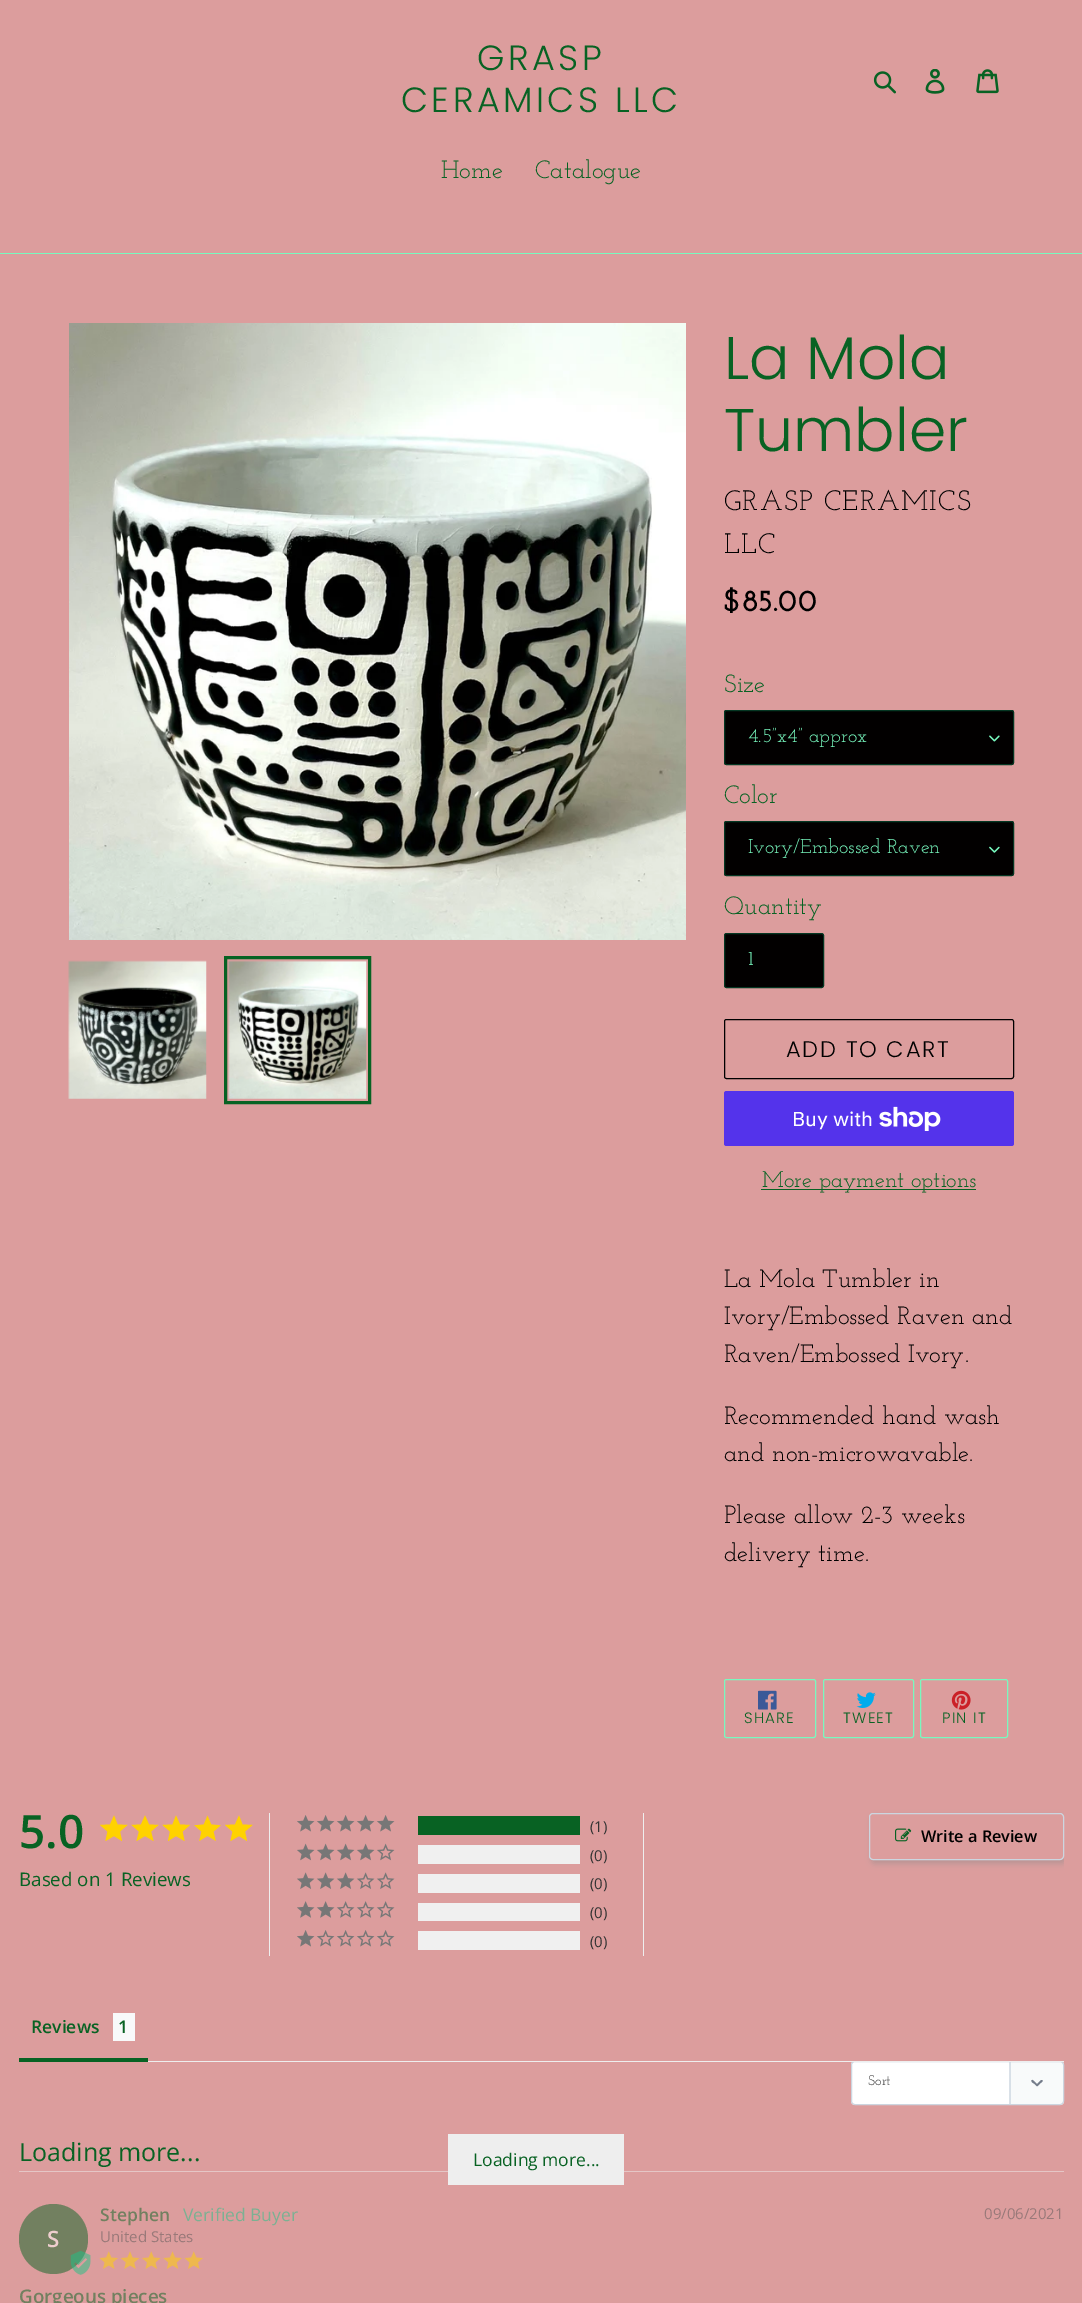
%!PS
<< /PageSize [1082 2303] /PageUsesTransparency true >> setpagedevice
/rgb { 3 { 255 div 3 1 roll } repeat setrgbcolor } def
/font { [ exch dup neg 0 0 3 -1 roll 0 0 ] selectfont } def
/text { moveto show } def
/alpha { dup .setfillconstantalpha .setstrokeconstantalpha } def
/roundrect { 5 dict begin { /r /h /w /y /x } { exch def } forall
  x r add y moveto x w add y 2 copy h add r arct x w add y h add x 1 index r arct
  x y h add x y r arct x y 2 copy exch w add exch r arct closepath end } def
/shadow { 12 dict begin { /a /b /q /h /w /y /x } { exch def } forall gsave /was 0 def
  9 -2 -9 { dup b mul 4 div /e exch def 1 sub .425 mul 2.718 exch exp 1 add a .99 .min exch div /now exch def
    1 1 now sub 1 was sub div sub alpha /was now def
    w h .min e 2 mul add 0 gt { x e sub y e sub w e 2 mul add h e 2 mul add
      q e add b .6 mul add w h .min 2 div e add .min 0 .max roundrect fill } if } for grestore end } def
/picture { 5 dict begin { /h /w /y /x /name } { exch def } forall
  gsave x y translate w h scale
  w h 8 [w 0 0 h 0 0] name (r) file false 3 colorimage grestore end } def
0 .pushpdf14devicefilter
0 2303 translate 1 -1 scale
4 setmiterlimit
220 157 157 rgb
0 0 1082 2303 rectfill
(img_01.rgb) 873 71 23 23 picture
(img_02.rgb) 925 69 20 25 picture
(img_03.rgb) 976 69 23 25 picture
120 249 191 rgb
0 253 1082 1 rectfill
(img_04.rgb) 69 323 617 617 picture
(img_05.rgb) 68 960 139 139 picture
8 98 35 rgb
3 setlinewidth
225.5 957.5 144 145 rectstroke
(img_06.rgb) 228 960 139 139 picture
2 0 0 rgb
724 710 290 55 2.5 roundrect fill
(img_07.rgb) 989 735 11 7 picture
5 55 35 rgb
1 setlinewidth
724.5 710.5 289 54 2 roundrect stroke
2 0 0 rgb
724 821 290 55 2.5 roundrect fill
(img_08.rgb) 989 846 11 7 picture
5 55 35 rgb
724.5 821.5 289 54 2 roundrect stroke
2 0 0 rgb
724.5 933.5 99 54 2 roundrect gsave fill grestore
5 55 35 rgb
stroke
0 0 0 rgb
724.5 1019.5 289 59 2 roundrect stroke
84 51 235 rgb
724 1091 290 55 2.5 roundrect fill
(img_09.rgb) 879 1106 62 25 picture
8 98 35 rgb
761 1189 215 1 rectfill
120 249 191 rgb
724.5 1679.5 91 58 2 roundrect stroke
(img_10.rgb) 758 1690 19 20 picture
823.5 1679.5 90 58 2 roundrect stroke
(img_11.rgb) 856 1692 20 16 picture
920.5 1679.5 87 58 2 roundrect stroke
(img_12.rgb) 951 1690 20 20 picture
255 210 0 rgb
114 1836 moveto -8.5 5 rlineto 2 -9.5 rlineto -7.5 -6.5 rlineto 10 -0.5 rlineto 4 -9 rlineto 3.5 9 rlineto 10 0.5 rlineto -7.5 6.5 rlineto 2 9.5 rlineto closepath 145 1836 moveto -8.5 5 rlineto 2.5 -9.5 rlineto -7.5 -6.5 rlineto 9.5 -0.5 rlineto 4 -9 rlineto 4 9 rlineto 9.5 0.5 rlineto -7.5 6.5 rlineto 2.5 9.5 rlineto closepath fill
176 1836 moveto -8 5 rlineto 2 -9.5 rlineto -7.5 -6.5 rlineto 10 -0.5 rlineto 3.5 -9 rlineto 4 9 rlineto 10 0.5 rlineto -7.5 6.5 rlineto 2 9.5 rlineto closepath fill
(img_13.rgb) 194 1815 27 26 picture
239 1836 moveto -8.5 5 rlineto 2 -9.5 rlineto -7.5 -6.5 rlineto 10 -0.5 rlineto 4 -9 rlineto 3.5 9 rlineto 10 0.5 rlineto -7.5 6.5 rlineto 2 9.5 rlineto closepath fill
238 238 238 rgb
643 1813 1 143 rectfill
269 1813 1 143 rectfill
(img_14.rgb) 297 1815 98 17 picture
8 98 35 rgb
418 1816 162 19 rectfill
(img_15.rgb) 297 1843 98 18 picture
240 240 240 rgb
418 1845 162 19 rectfill
(img_16.rgb) 297 1872 98 17 picture
418 1874 162 19 rectfill
(img_17.rgb) 297 1901 98 17 picture
418 1903 162 18 rectfill
(img_18.rgb) 297 1930 98 17 picture
418 1931 162 19 rectfill
gsave
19 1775 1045 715 rectclip
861 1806 moveto 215 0 rlineto 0 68 rlineto -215 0 rlineto closepath 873 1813 moveto 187 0 rlineto 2 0 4 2 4 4 rcurveto 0 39 rlineto 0 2 -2 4 -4 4 rcurveto -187 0 rlineto -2 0 -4 -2 -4 -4 rcurveto 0 -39 rlineto 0 -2 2 -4 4 -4 rcurveto closepath eoclip newpath
136 136 136 rgb
871 1816 195 48 4 3 0.42 shadow
grestore
204 214 224 rgb
869.5 1813.5 194 46 3.5 roundrect stroke
(img_19.rgb) 895 1828 17 14 picture
255 255 255 rgb
851 2061 213 44 4 roundrect fill
0.5 alpha
242 246 246 rgb
1010 2061 moveto 50 0 rlineto 2 0 4 2 4 4 rcurveto 0 36 rlineto 0 2 -2 4 -4 4 rcurveto -50 0 rlineto closepath fill
gsave
851 2061 213 44 4 roundrect clip newpath
1 alpha
204 214 224 rgb
1.2 setlinewidth
2 setlinecap
1010 2114 moveto 0 -63 rlineto stroke
grestore
1 alpha
117 125 139 rgb
1041 2080 moveto 1 0 rlineto 2 0.5 -1 3 -1.5 3 rcurveto -0.5 0.5 -3 4 -4 3 rcurveto -2.5 -2.5 rlineto -0.5 0 -4 -2.5 -2 -3.5 rcurveto 1 -0.5 4 3.5 5 4 rcurveto closepath fill
204 214 224 rgb
851.5 2061.5 212 43 3.5 roundrect stroke
238 238 238 rgb
148 2061 916 1 rectfill
8 98 35 rgb
19 2058 129 4 rectfill
248 249 250 rgb
113 2013 22 28 rectfill
229 198 198 rgb
19 2171 1045 1 rectfill
238 238 238 rgb
448 2134 176 51 rectfill
114 128 96 rgb
19 2204 69 70 34.5 roundrect fill
(img_20.rgb) 70 2250 21 25 picture
(img_21.rgb) 99 2251 19 18 picture
(img_22.rgb) 120 2251 20 18 picture
(img_23.rgb) 142 2251 19 18 picture
(img_24.rgb) 163 2251 19 18 picture
(img_21.rgb) 184 2251 19 18 picture
/Poppins-Light 35 font
8 98 35 rgb
477 70 moveto 3.5 0 (GRASP) ashow
401 112 moveto 3.5 0 (CERAMICS LLC) ashow
/JosefinSlab-Regular 25 font
(Home) 441 178 text
(Catalogue) 535 178 text
/Poppins-Light 60 font
(La Mola) 724 379 text
(Tumbler) 724 451 text
/JosefinSlab-Regular 28.1 font
0 0 0 rgb
724 510 moveto 1.25 0 (GRASP CERAMICS) ashow
724 553 moveto 1.25 0 (LLC) ashow
/JosefinSlab-Bold 31 font
($85.00) 724 611 text
/JosefinSlab-Regular 25 font
8 98 35 rgb
(Size) 724 692 text
/JosefinSlab-Regular 20 font
120 249 191 rgb
(4.5”x4” approx) 748 742 text
/JosefinSlab-Regular 25 font
8 98 35 rgb
(Color) 724 803 text
/JosefinSlab-Regular 20 font
120 249 191 rgb
(Ivory/Embossed Raven) 748 853 text
/JosefinSlab-Regular 25 font
8 98 35 rgb
(Quantity) 724 914 text
/JosefinSlab-Regular 20 font
120 249 191 rgb
(1) 748 965 text
/Poppins-Light 22.5 font
0 0 0 rgb
786 1057 moveto 1.75 0 (ADD TO CART) ashow
/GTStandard-Regular 20 font
255 255 255 rgb
(Buy with) 792 1126 text
/JosefinSlab-Regular 22.5 font
8 98 35 rgb
(More payment options) 762 1187 text
/JosefinSlab-Regular 25 font
0 0 0 rgb
(La Mola Tumbler in) 724 1287 text
(Ivory/Embossed Raven and) 724 1324 text
(Raven/Embossed Ivory.) 724 1362 text
(Recommended hand wash) 724 1424 text
(and non-microwavable.) 724 1461 text
(Please allow 2-3 weeks) 724 1523 text
(delivery time.) 724 1561 text
/Poppins-Light 15 font
8 98 35 rgb
744 1723 moveto 1.25 0 (SHARE) ashow
843 1723 moveto 1.25 0 (TWEET) ashow
942 1723 moveto 1.25 0 (PIN IT) ashow
/OpenSans-SemiBold 46 font
(5.0) 19 1848 text
/OpenSans-Regular 18.75 font
(Based on 1 Reviews) 19 1886 text
/OpenSans-Regular 15 font
51 51 51 rgb
(\(1\)) 590 1832 text
(\(0\)) 590 1861 text
(\(0\)) 590 1889 text
(\(0\)) 590 1918 text
(\(0\)) 590 1947 text
/OpenSans-SemiBold 16.25 font
0 0 0 rgb
(Write a Review) 921 1842 text
/OpenSans-SemiBold 17.5 font
8 98 35 rgb
(Reviews) 31 2033 text
(1) 118 2033 text
/JosefinSlab-Regular 14 font
51 51 51 rgb
(Sort) 868 2085 text
/OpenSans-Regular 25 font
8 98 35 rgb
(Loading more...) 19 2161 text
/OpenSans-Regular 17.5 font
(Loading more...) 473 2166 text
/OpenSans-SemiBold 17.5 font
114 128 96 rgb
(Stephen) 100 2221 text
/OpenSans-Regular 17.5 font
124 176 146 rgb
(Verified Buyer) 183 2221 text
/OpenSans-Regular 15 font
153 121 121 rgb
(09/06/2021) 984 2219 text
/OpenSans-SemiBold 22.5 font
238 206 206 rgb
(S) 47 2247 text
/OpenSans-Regular 15 font
153 121 121 rgb
(United States) 100 2242 text
/OpenSans-SemiBold 18.75 font
114 128 96 rgb
(Gorgeous pieces) 19 2303 text
.poppdf14devicefilter showpage
